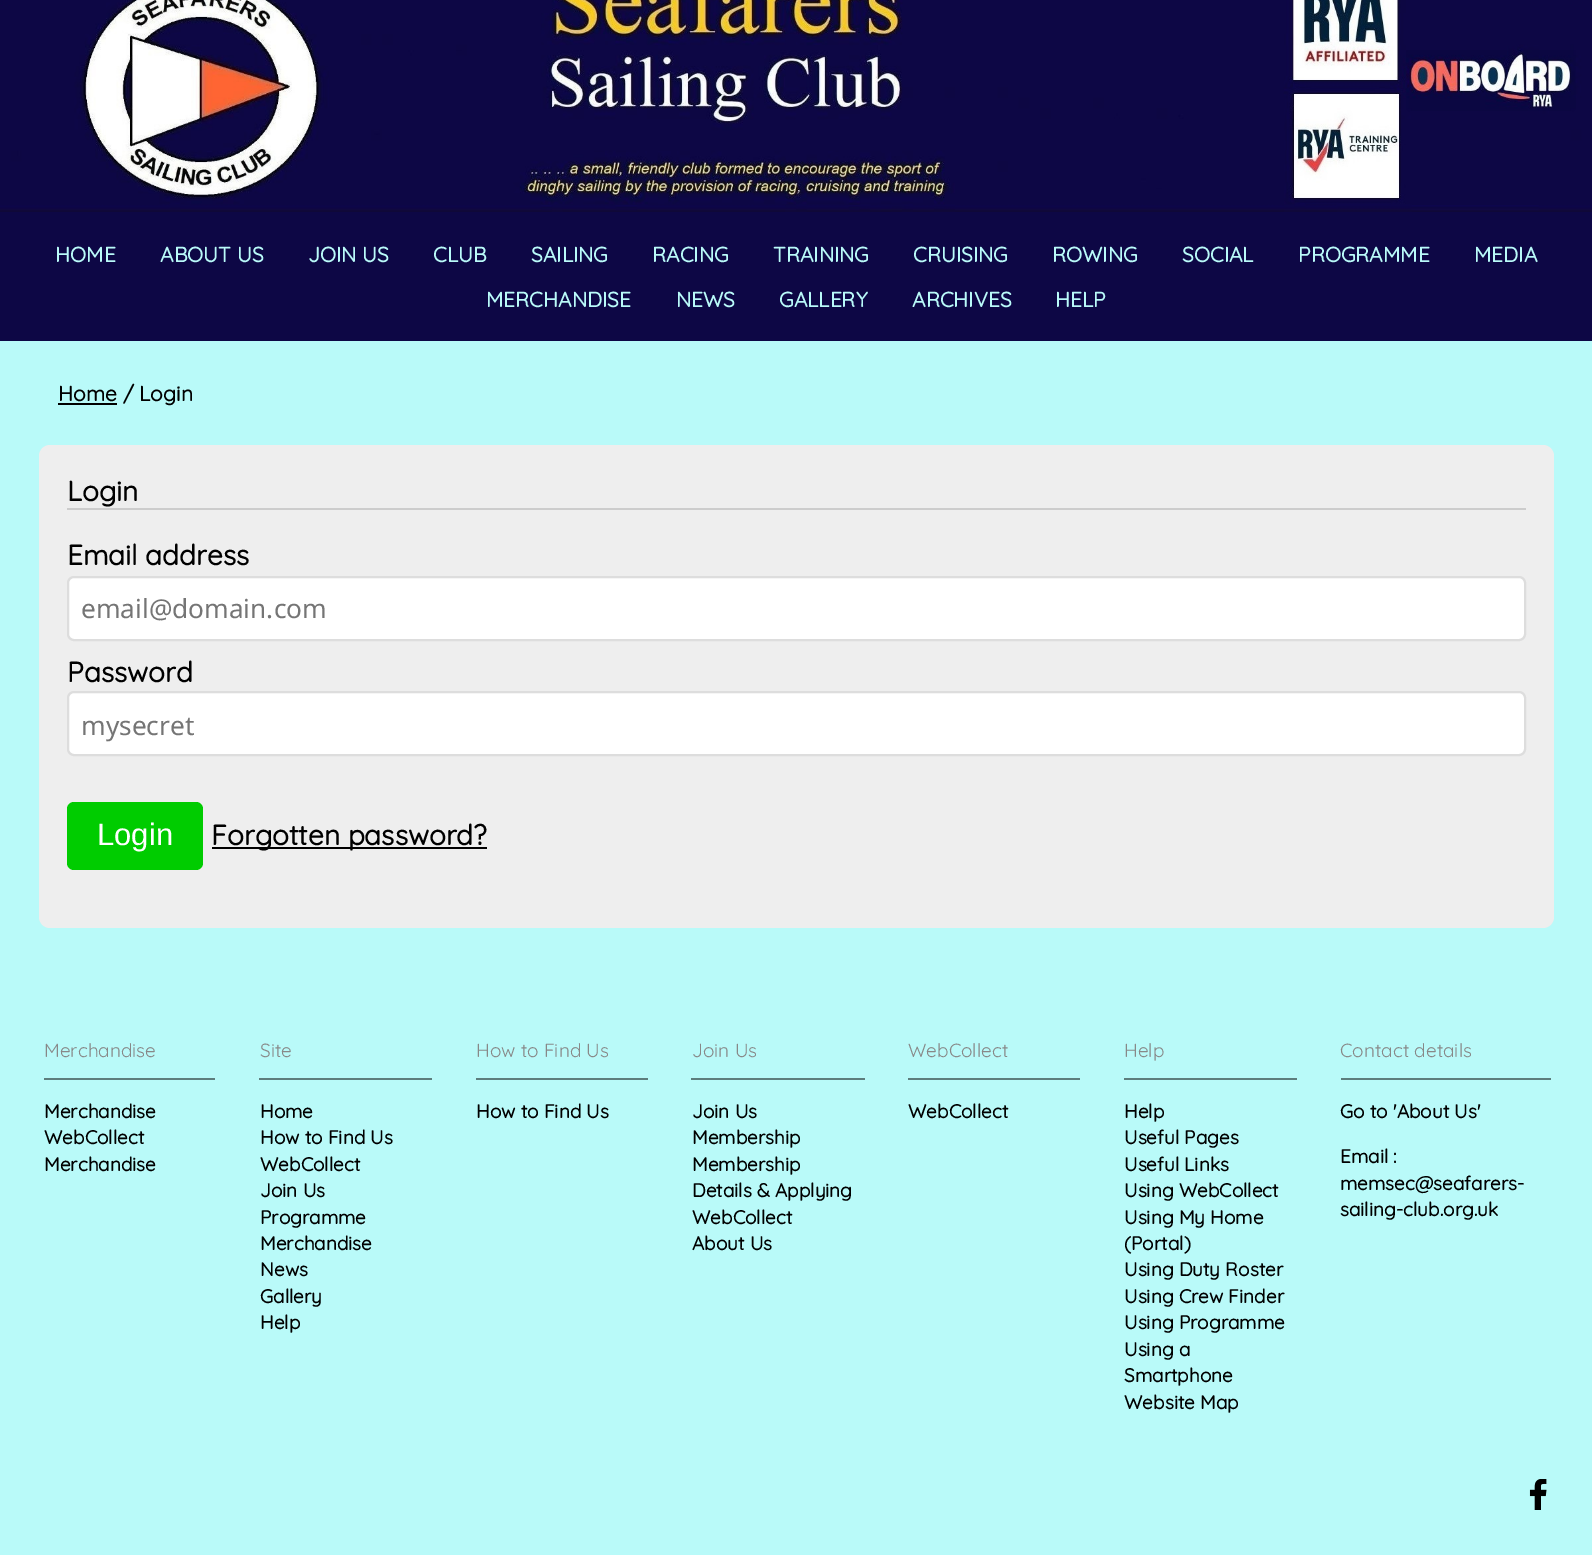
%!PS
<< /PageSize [1592 1555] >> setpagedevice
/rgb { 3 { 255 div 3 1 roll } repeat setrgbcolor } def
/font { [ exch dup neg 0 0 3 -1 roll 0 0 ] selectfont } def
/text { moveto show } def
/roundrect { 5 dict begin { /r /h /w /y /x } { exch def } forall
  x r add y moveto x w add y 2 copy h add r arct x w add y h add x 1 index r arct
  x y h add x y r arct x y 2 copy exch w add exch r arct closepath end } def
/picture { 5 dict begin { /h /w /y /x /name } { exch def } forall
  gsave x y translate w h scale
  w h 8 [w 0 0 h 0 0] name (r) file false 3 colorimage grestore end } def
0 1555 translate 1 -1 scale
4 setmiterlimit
255 255 255 rgb
0 0 1592 1555 rectfill
(img_01.rgb) 0 211 1592 130 picture
(img_02.rgb) 0 0 1592 212 picture
185 250 249 rgb
0 341 1592 1119 rectfill
0 0 0 rgb
58 403 59 2 rectfill
238 238 238 rgb
39 445 1515 483 11 roundrect fill
204 204 204 rgb
67 508 1459 2 rectfill
255 255 255 rgb
68 577 1457 63 6 roundrect gsave fill grestore
221 221 221 rgb
2 setlinewidth
stroke
255 255 255 rgb
68 692 1457 63 6 roundrect gsave fill grestore
221 221 221 rgb
stroke
0 204 0 rgb
67 802 136 68 7 roundrect fill
0 0 0 rgb
212 847 275 2 rectfill
93 125 125 rgb
44 1078 171 2 rectfill
259 1078 173 2 rectfill
476 1078 172 2 rectfill
691 1078 174 2 rectfill
908 1078 172 2 rectfill
1124 1078 173 2 rectfill
1341 1078 210 2 rectfill
185 250 249 rgb
0 1460 1592 95 rectfill
(img_03.rgb) 1529 1479 18 31 picture
/Quicksand-Bold 21 font
(HOME) 55 262 text
(ABOUT US) 160 262 text
(JOIN US) 308 262 text
(CLUB) 433 262 text
(SAILING) 531 262 text
(RACING) 652 262 text
(TRAINING) 773 262 text
(CRUISING) 913 262 text
(ROWING) 1052 262 text
(SOCIAL) 1182 262 text
(PROGRAMME) 1298 262 text
(MEDIA) 1474 262 text
(MERCHANDISE) 486 307 text
(NEWS) 676 307 text
(GALLERY) 779 307 text
(ARCHIVES) 912 307 text
(HELP) 1055 307 text
0 0 0 rgb
(Home / Login) 58 401 text
/Quicksand-Bold 28 font
(Login) 67 501 text
(Email address) 67 565 text
/NotoSans-Regular 26.25 font
117 117 117 rgb
(email@domain.com) 81 618 text
/Quicksand-Bold 28 font
0 0 0 rgb
(Password) 67 682 text
/NotoSans-Regular 26.25 font
117 117 117 rgb
(mysecret) 81 735 text
/LiberationSans-Regular 31 font
255 255 255 rgb
(Login) 97 845 text
/Quicksand-Bold 28 font
0 0 0 rgb
(Forgotten password?) 211 845 text
/Quicksand-Light 19 font
136 136 136 rgb
(Merchandise) 44 1057 text
/Quicksand-Bold 19 font
0 0 0 rgb
(Merchandise) 44 1118 text
(WebCollect) 44 1144 text
(Merchandise) 44 1171 text
/Quicksand-Light 19 font
136 136 136 rgb
(Site) 260 1057 text
/Quicksand-Bold 19 font
0 0 0 rgb
(Home) 260 1118 text
(How to Find Us) 260 1144 text
(WebCollect) 260 1171 text
(Join Us) 260 1197 text
(Programme) 260 1224 text
(Merchandise) 260 1250 text
(News) 260 1276 text
(Gallery) 260 1303 text
(Help) 260 1329 text
/Quicksand-Light 19 font
136 136 136 rgb
(How to Find Us) 476 1057 text
/Quicksand-Bold 19 font
0 0 0 rgb
(How to Find Us) 476 1118 text
/Quicksand-Light 19 font
136 136 136 rgb
(Join Us) 692 1057 text
/Quicksand-Bold 19 font
0 0 0 rgb
(Join Us) 692 1118 text
(Membership) 692 1144 text
(Membership) 692 1171 text
(Details & Applying) 692 1197 text
(WebCollect) 692 1224 text
(About Us) 692 1250 text
/Quicksand-Light 19 font
136 136 136 rgb
(WebCollect) 908 1057 text
/Quicksand-Bold 19 font
0 0 0 rgb
(WebCollect) 908 1118 text
/Quicksand-Light 19 font
136 136 136 rgb
(Help) 1124 1057 text
/Quicksand-Bold 19 font
0 0 0 rgb
(Help) 1124 1118 text
(Useful Pages) 1124 1144 text
(Useful Links) 1124 1171 text
(Using WebCollect) 1124 1197 text
(Using My Home) 1124 1224 text
(\(Portal\)) 1124 1250 text
(Using Duty Roster) 1124 1276 text
(Using Crew Finder) 1124 1303 text
(Using Programme) 1124 1329 text
(Using a) 1124 1356 text
(Smartphone) 1124 1382 text
(Website Map) 1124 1409 text
/Quicksand-Light 19 font
136 136 136 rgb
(Contact details) 1340 1057 text
/Quicksand-Bold 19 font
0 0 0 rgb
(Go to 'About Us') 1340 1118 text
(Email :) 1340 1163 text
(memsec@seafarers-) 1340 1190 text
(sailing-club.org.uk) 1340 1216 text
showpage
